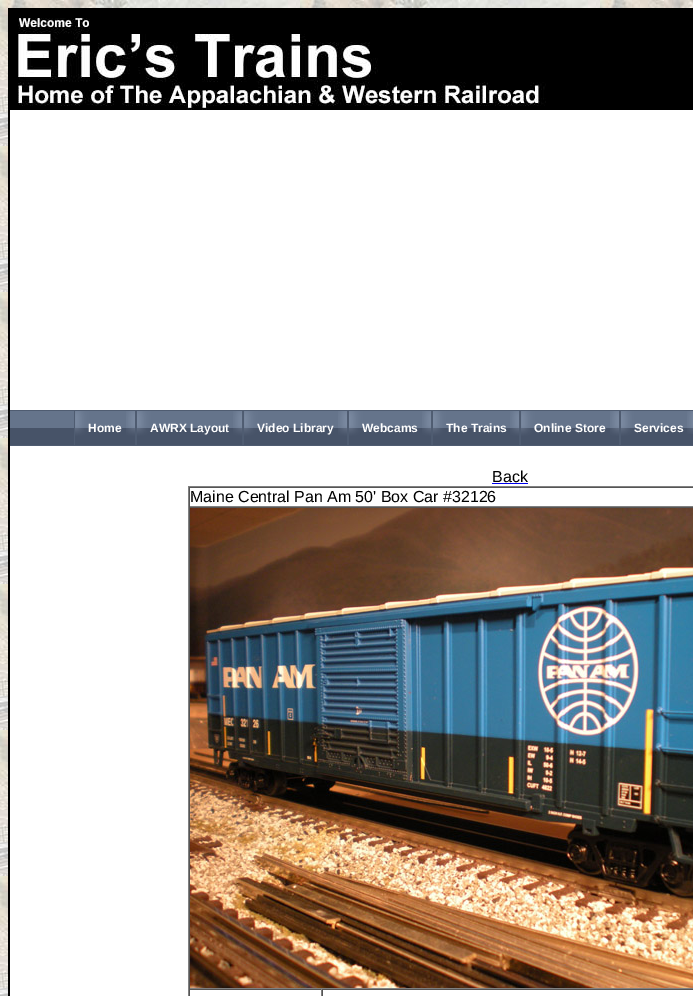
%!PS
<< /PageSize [693 996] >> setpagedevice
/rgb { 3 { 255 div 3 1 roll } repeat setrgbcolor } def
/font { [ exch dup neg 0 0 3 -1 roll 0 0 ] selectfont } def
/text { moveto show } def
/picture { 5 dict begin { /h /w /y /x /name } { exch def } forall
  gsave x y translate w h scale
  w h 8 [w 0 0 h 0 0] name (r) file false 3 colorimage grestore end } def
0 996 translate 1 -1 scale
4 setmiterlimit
255 255 255 rgb
0 0 693 996 rectfill
(img_01.rgb) 0 0 693 996 picture
0 0 0 rgb
8.5 8.5 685 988 rectstroke
9.5 9.5 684 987 rectstroke
255 255 255 rgb
10 110 683 886 rectfill
(img_02.rgb) 10 10 683 100 picture
(img_03.rgb) 10 410 64 36 picture
(img_04.rgb) 74 410 62 36 picture
(img_05.rgb) 126 411 10 34 picture
(img_06.rgb) 136 410 107 36 picture
(img_07.rgb) 233 411 10 34 picture
(img_08.rgb) 243 410 105 36 picture
(img_05.rgb) 338 411 10 34 picture
(img_09.rgb) 348 410 84 36 picture
(img_07.rgb) 422 411 10 34 picture
(img_10.rgb) 432 410 88 36 picture
(img_07.rgb) 510 411 10 34 picture
(img_11.rgb) 520 410 100 36 picture
(img_05.rgb) 610 411 10 34 picture
(img_12.rgb) 620 410 73 36 picture
(img_13.rgb) 687 411 6 23 picture
0 0 238 rgb
492 483 36 1 rectfill
128 128 128 rgb
188 486 505 1 rectfill
188 486 1 510 rectfill
85 85 85 rgb
189 487 504 1 rectfill
128 128 128 rgb
189 506 504 1 rectfill
85 85 85 rgb
189 487 1 20 rectfill
189 507 504 1 rectfill
128 128 128 rgb
189 988 504 1 rectfill
85 85 85 rgb
189 507 1 482 rectfill
(img_14.rgb) 190 508 503 480 picture
189 989 504 1 rectfill
128 128 128 rgb
321 989 1 7 rectfill
85 85 85 rgb
189 989 1 7 rectfill
322 989 1 7 rectfill
/LiberationSans-Bold 12 font
255 255 255 rgb
(Home) 88 432 text
(AWRX Layout) 150 432 text
(Video Library) 257 432 text
(Webcams) 362 432 text
(The Trains) 446 432 text
(Online Store) 534 432 text
(Services) 634 432 text
/LiberationSans-Regular 16 font
0 0 0 rgb
(Back) 492 482 text
(Maine Central Pan Am 50' Box Car #32126) 190 502 text
showpage
